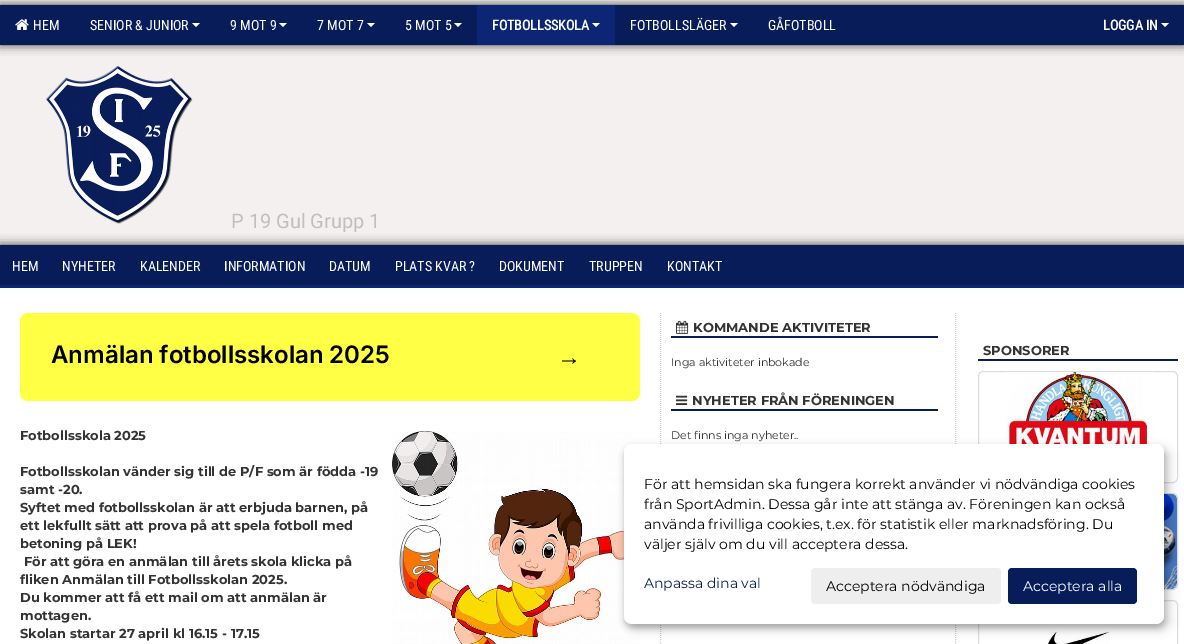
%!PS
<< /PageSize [1184 644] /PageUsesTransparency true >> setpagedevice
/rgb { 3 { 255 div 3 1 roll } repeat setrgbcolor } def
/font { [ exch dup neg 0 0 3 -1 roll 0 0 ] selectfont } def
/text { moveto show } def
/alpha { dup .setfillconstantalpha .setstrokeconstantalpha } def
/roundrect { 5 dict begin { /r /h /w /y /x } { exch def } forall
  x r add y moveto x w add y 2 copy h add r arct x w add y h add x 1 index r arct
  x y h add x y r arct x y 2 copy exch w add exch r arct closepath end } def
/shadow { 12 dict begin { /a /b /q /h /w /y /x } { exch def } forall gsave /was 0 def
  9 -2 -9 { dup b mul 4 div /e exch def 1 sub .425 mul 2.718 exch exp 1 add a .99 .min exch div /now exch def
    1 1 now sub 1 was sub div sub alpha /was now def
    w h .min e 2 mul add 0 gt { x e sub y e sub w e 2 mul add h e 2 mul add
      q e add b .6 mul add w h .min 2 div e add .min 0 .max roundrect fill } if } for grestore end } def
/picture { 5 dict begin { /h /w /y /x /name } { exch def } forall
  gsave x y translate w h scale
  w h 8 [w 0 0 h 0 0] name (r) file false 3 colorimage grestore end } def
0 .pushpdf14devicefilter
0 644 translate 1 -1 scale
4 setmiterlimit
245 240 240 rgb
0 0 1184 644 rectfill
51 51 51 rgb
0 5 1184 40 0 5 1 shadow
9 28 90 rgb
0 5 1184 40 rectfill
(img_01.rgb) 15 19 14 11 picture
255 255 255 rgb
192 23 moveto 8 0 rlineto -4 4 rlineto closepath fill
279 23 moveto 8 0 rlineto -4 4 rlineto closepath fill
367 23 moveto 8 0 rlineto -4 4 rlineto closepath fill
454 23 moveto 8 0 rlineto -4 4 rlineto closepath fill
12 37 117 rgb
477 5 138 40 rectfill
255 255 255 rgb
592 23 moveto 8 0 rlineto -4 4 rlineto closepath fill
730 23 moveto 8 0 rlineto -4 4 rlineto closepath fill
1161 23 moveto 8 0 rlineto -4 4 rlineto closepath fill
(img_02.rgb) 46 66 147 158 picture
51 51 51 rgb
0 245 1184 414 0 5 1 shadow
255 255 255 rgb
0 288 1184 356 rectfill
9 28 90 rgb
0 245 1184 40 rectfill
12 37 117 rgb
0 285 1184 3 rectfill
255 255 69 rgb
20 313 620 88 8 roundrect fill
(img_03.rgb) 392 431 248 213 picture
204 204 204 rgb
[1 1] 0 setdash
660.5 313 moveto 0 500 rlineto stroke
9 28 90 rgb
671 336 267 2 rectfill
(img_04.rgb) 676 320 13 14 picture
671 409 267 2 rectfill
(img_05.rgb) 676 395 12 10 picture
204 204 204 rgb
955.5 313 moveto 0 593 rlineto stroke
9 28 90 rgb
978 359 200 2 rectfill
221 221 221 rgb
[] 0 setdash
978.5 371.5 199 111 4.5 roundrect stroke
(img_06.rgb) 1005 372 149 72 picture
978.5 493.5 199 96 4.5 roundrect stroke
(img_07.rgb) 1164 494 13 95 picture
978.5 600.5 199 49 4.5 roundrect stroke
(img_08.rgb) 1048 631 62 13 picture
0 0 0 rgb
629 449 540 180 8 5 0.19 shadow
624 448 540 180 8 3 0.2 shadow
255 255 255 rgb
624 444 540 180 8 roundrect fill
238 238 238 rgb
811 568 190 36 4 roundrect fill
9 28 90 rgb
1008 568 129 36 4 roundrect fill
/RobotoCondensed-Regular 14 font
255 255 255 rgb
(HEM) 33 30 text
(SENIOR & JUNIOR) 90 30 text
(9 MOT 9) 230 30 text
(7 MOT 7) 317 30 text
(5 MOT 5) 405 30 text
/RobotoCondensed-Bold 14 font
(FOTBOLLSSKOLA) 492 30 text
/RobotoCondensed-Regular 14 font
(FOTBOLLSLÄGER) 630 30 text
(GÅFOTBOLL) 768 30 text
/RobotoCondensed-Bold 14 font
(LOGGA IN) 1103 30 text
/Roboto-Regular 20 font
191 191 191 rgb
(P 19 Gul Grupp 1) 231 228 text
/RobotoCondensed-Regular 14 font
255 255 255 rgb
(HEM) 12 271 text
(NYHETER) 62 271 text
(KALENDER) 140 271 text
(INFORMATION) 224 271 text
(DATUM) 329 271 text
(PLATS KVAR ?) 395 271 text
(DOKUMENT) 499 271 text
(TRUPPEN) 589 271 text
(KONTAKT) 667 271 text
/Inter-SemiBold 24 font
0 0 0 rgb
(Anmälan fotbollsskolan 2025) 51 363 text
/LiberationSans-Regular 24 font
(→) 557 365 text
/Montserrat-Bold 13 font
51 51 51 rgb
(Fotbollsskola 2025) 20 440 text
(Fotbollsskolan vänder sig till de P/F som är födda -19) 20 476 text
(samt -20.) 20 494 text
(Syftet med fotbollsskolan är att erbjuda barnen, på) 20 512 text
(ett lekfullt sätt att prova på att spela fotboll med) 20 530 text
(betoning på LEK!) 20 548 text
(För att göra en anmälan till årets skola klicka på) 24 566 text
(fliken Anmälan till Fotbollsskolan 2025.) 20 584 text
(Du kommer att få ett mail om att anmälan är) 20 602 text
(mottagen.) 20 620 text
(Skolan startar 27 april kl 16.15 - 17.15) 20 638 text
(KOMMANDE AKTIVITETER) 693 332 text
/Montserrat-Regular 11 font
(Inga aktiviteter inbokade) 671 366 text
/Montserrat-Bold 13 font
(NYHETER FRÅN FÖRENINGEN) 692 405 text
/Montserrat-Regular 11 font
(Det finns inga nyheter..) 671 439 text
/Montserrat-Bold 13 font
(SPONSORER) 983 355 text
/Montserrat-Regular 14 font
0 0 0 rgb
(För att hemsidan ska fungera korrekt använder vi nödvändiga cookies) 644 489 text
(från SportAdmin. Dessa går inte att stänga av. Föreningen kan också) 644 509 text
(använda frivilliga cookies, t.ex. för statistik eller marknadsföring. Du) 644 529 text
(väljer själv om du vill acceptera dessa.) 644 549 text
9 28 90 rgb
(Anpassa dina val) 644 588 text
0 0 0 rgb
(Acceptera nödvändiga) 826 591 text
255 255 255 rgb
(Acceptera alla) 1023 591 text
.poppdf14devicefilter showpage
